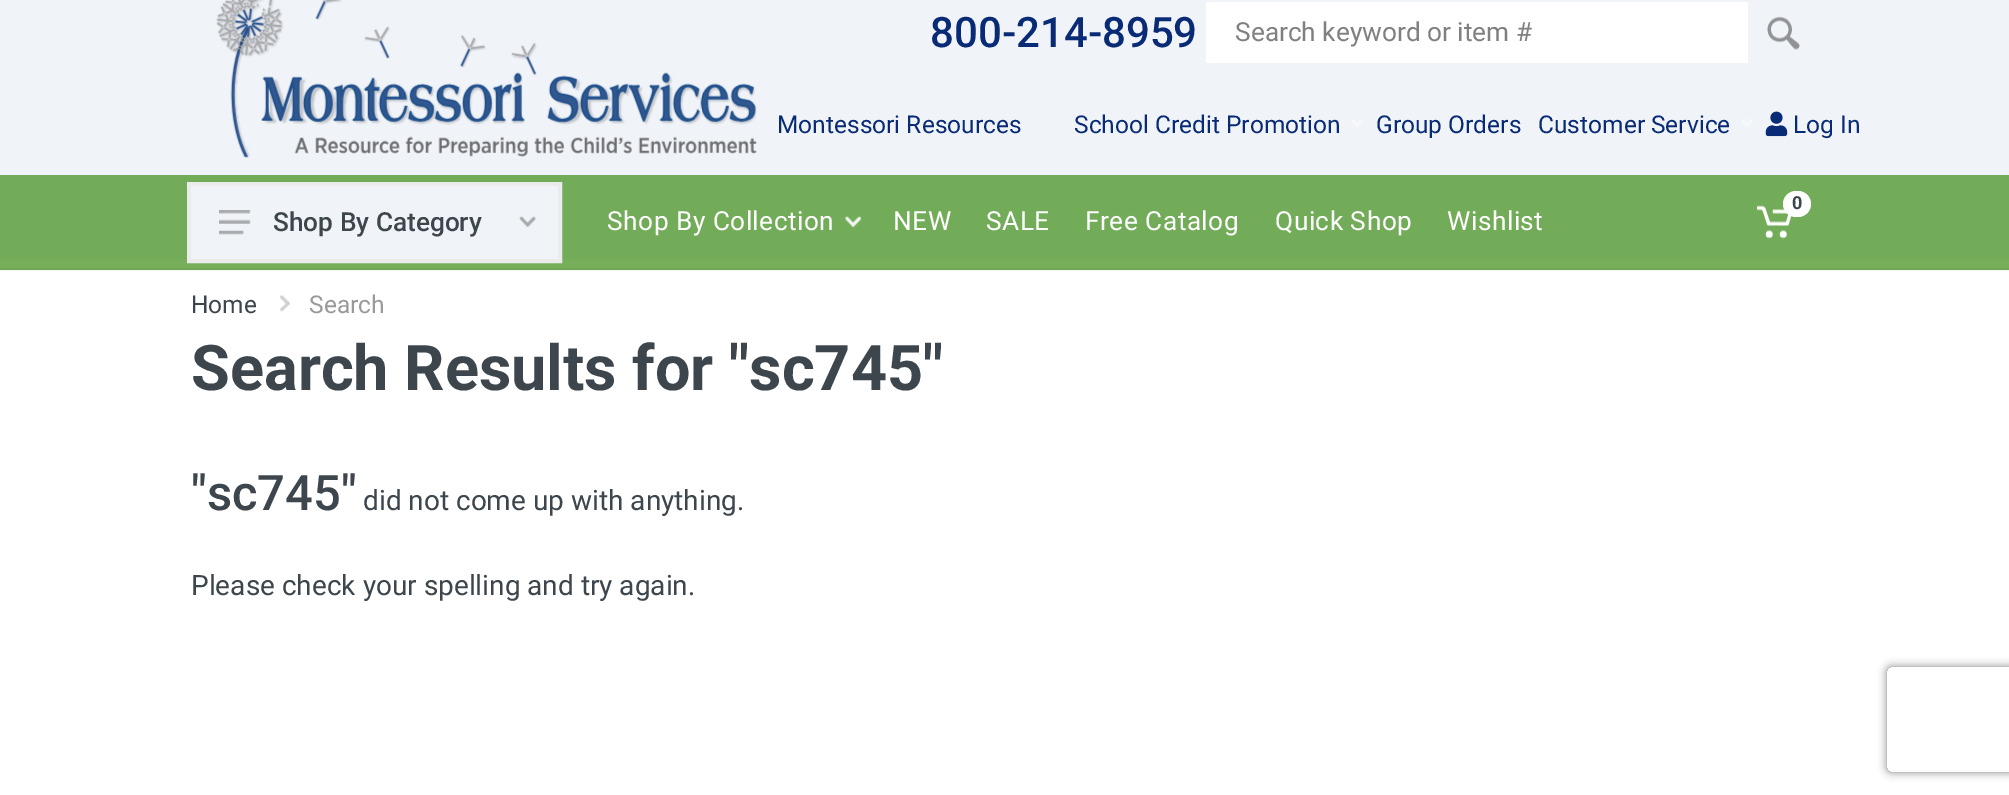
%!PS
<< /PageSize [2009 795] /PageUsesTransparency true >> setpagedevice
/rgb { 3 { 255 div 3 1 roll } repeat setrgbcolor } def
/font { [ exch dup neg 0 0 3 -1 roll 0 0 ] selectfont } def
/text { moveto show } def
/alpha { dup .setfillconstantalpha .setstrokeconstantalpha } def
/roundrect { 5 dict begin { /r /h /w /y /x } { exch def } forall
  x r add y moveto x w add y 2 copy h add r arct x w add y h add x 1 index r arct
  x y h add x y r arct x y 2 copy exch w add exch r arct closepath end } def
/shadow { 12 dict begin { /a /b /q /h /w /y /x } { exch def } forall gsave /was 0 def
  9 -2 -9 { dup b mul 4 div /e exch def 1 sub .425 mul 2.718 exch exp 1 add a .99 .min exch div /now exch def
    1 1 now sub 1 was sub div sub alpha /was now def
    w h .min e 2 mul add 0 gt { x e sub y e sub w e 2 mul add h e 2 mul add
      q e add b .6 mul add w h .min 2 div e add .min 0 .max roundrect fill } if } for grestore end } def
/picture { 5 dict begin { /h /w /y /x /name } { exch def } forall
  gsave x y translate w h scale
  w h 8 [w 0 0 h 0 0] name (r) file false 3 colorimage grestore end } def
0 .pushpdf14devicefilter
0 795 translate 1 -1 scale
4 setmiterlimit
255 255 255 rgb
0 0 2009 795 rectfill
118 174 90 rgb
0 259 2009 9 rectfill
240 243 248 rgb
0 0 2009 175 rectfill
115 172 89 rgb
0 175 2009 84 rectfill
(img_01.rgb) 216 0 541 158 picture
255 255 255 rgb
1206 2 542 61 rectfill
(img_02.rgb) 1767 16 33 34 picture
(img_03.rgb) 1351 119 12 8 picture
(img_04.rgb) 1742 119 11 8 picture
(img_05.rgb) 1765 111 23 26 picture
245 245 245 rgb
0 270 2009 1 rectfill
114 167 87 rgb
0 268 2009 2 rectfill
(img_06.rgb) 1757 205 35 34 picture
255 255 255 rgb
1783 191 28 26 13 roundrect fill
235 235 235 rgb
4 setlinewidth
189 184 371 77 rectstroke
240 243 248 rgb
191 186 367 73 rectfill
(img_07.rgb) 219 210 32 25 picture
(img_08.rgb) 519 216 17 11 picture
(img_09.rgb) 844 216 18 12 picture
(img_10.rgb) 280 295 10 17 picture
gsave
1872 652 moveto 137 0 rlineto 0 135 rlineto -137 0 rlineto closepath 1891 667 moveto 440 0 rlineto 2 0 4 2 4 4 rcurveto 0 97 rlineto 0 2 -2 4 -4 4 rcurveto -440 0 rlineto -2 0 -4 -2 -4 -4 rcurveto 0 -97 rlineto 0 -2 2 -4 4 -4 rcurveto closepath eoclip newpath
128 128 128 rgb
1887 667 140 105 4 4.5 1 shadow
grestore
/Roboto-Medium 42 font
9 43 118 rgb
(800-214-8959) 930 47 text
/Roboto-Regular 26.25 font
128 128 128 rgb
(Search keyword or item #) 1235 41 text
/Roboto-Regular 24.5 font
9 43 118 rgb
(Montessori Resources) 777 133 text
(School Credit Promotion) 1074 133 text
(Group Orders) 1376 133 text
(Customer Service) 1538 133 text
(Log In) 1793 133 text
/Roboto-Bold 18 font
61 70 77 rgb
(0) 1792 209 text
/Roboto-Medium 26.25 font
(Shop By Category) 273 231 text
/Roboto-Regular 26.25 font
255 255 255 rgb
607 230 moveto 0.5 0 (Shop By Collection) ashow
893 230 moveto 0.5 0 (NEW) ashow
986 230 moveto 0.5 0 (SALE) ashow
1085 230 moveto 0.5 0 (Free Catalog) ashow
1275 230 moveto 0.5 0 (Quick Shop) ashow
1447 230 moveto 0.5 0 (Wishlist) ashow
/Roboto-Regular 24.5 font
61 70 77 rgb
(Home) 191 313 text
153 153 153 rgb
(Search) 309 313 text
/Roboto-Bold 63 font
61 70 77 rgb
(Search Results for "sc745") 191 390 text
/Roboto-Medium 49 font
("sc745") 191 510 text
/Roboto-Regular 28 font
(did not come up with anything.) 363 510 text
(Please check your spelling and try again.) 191 595 text
.poppdf14devicefilter showpage
